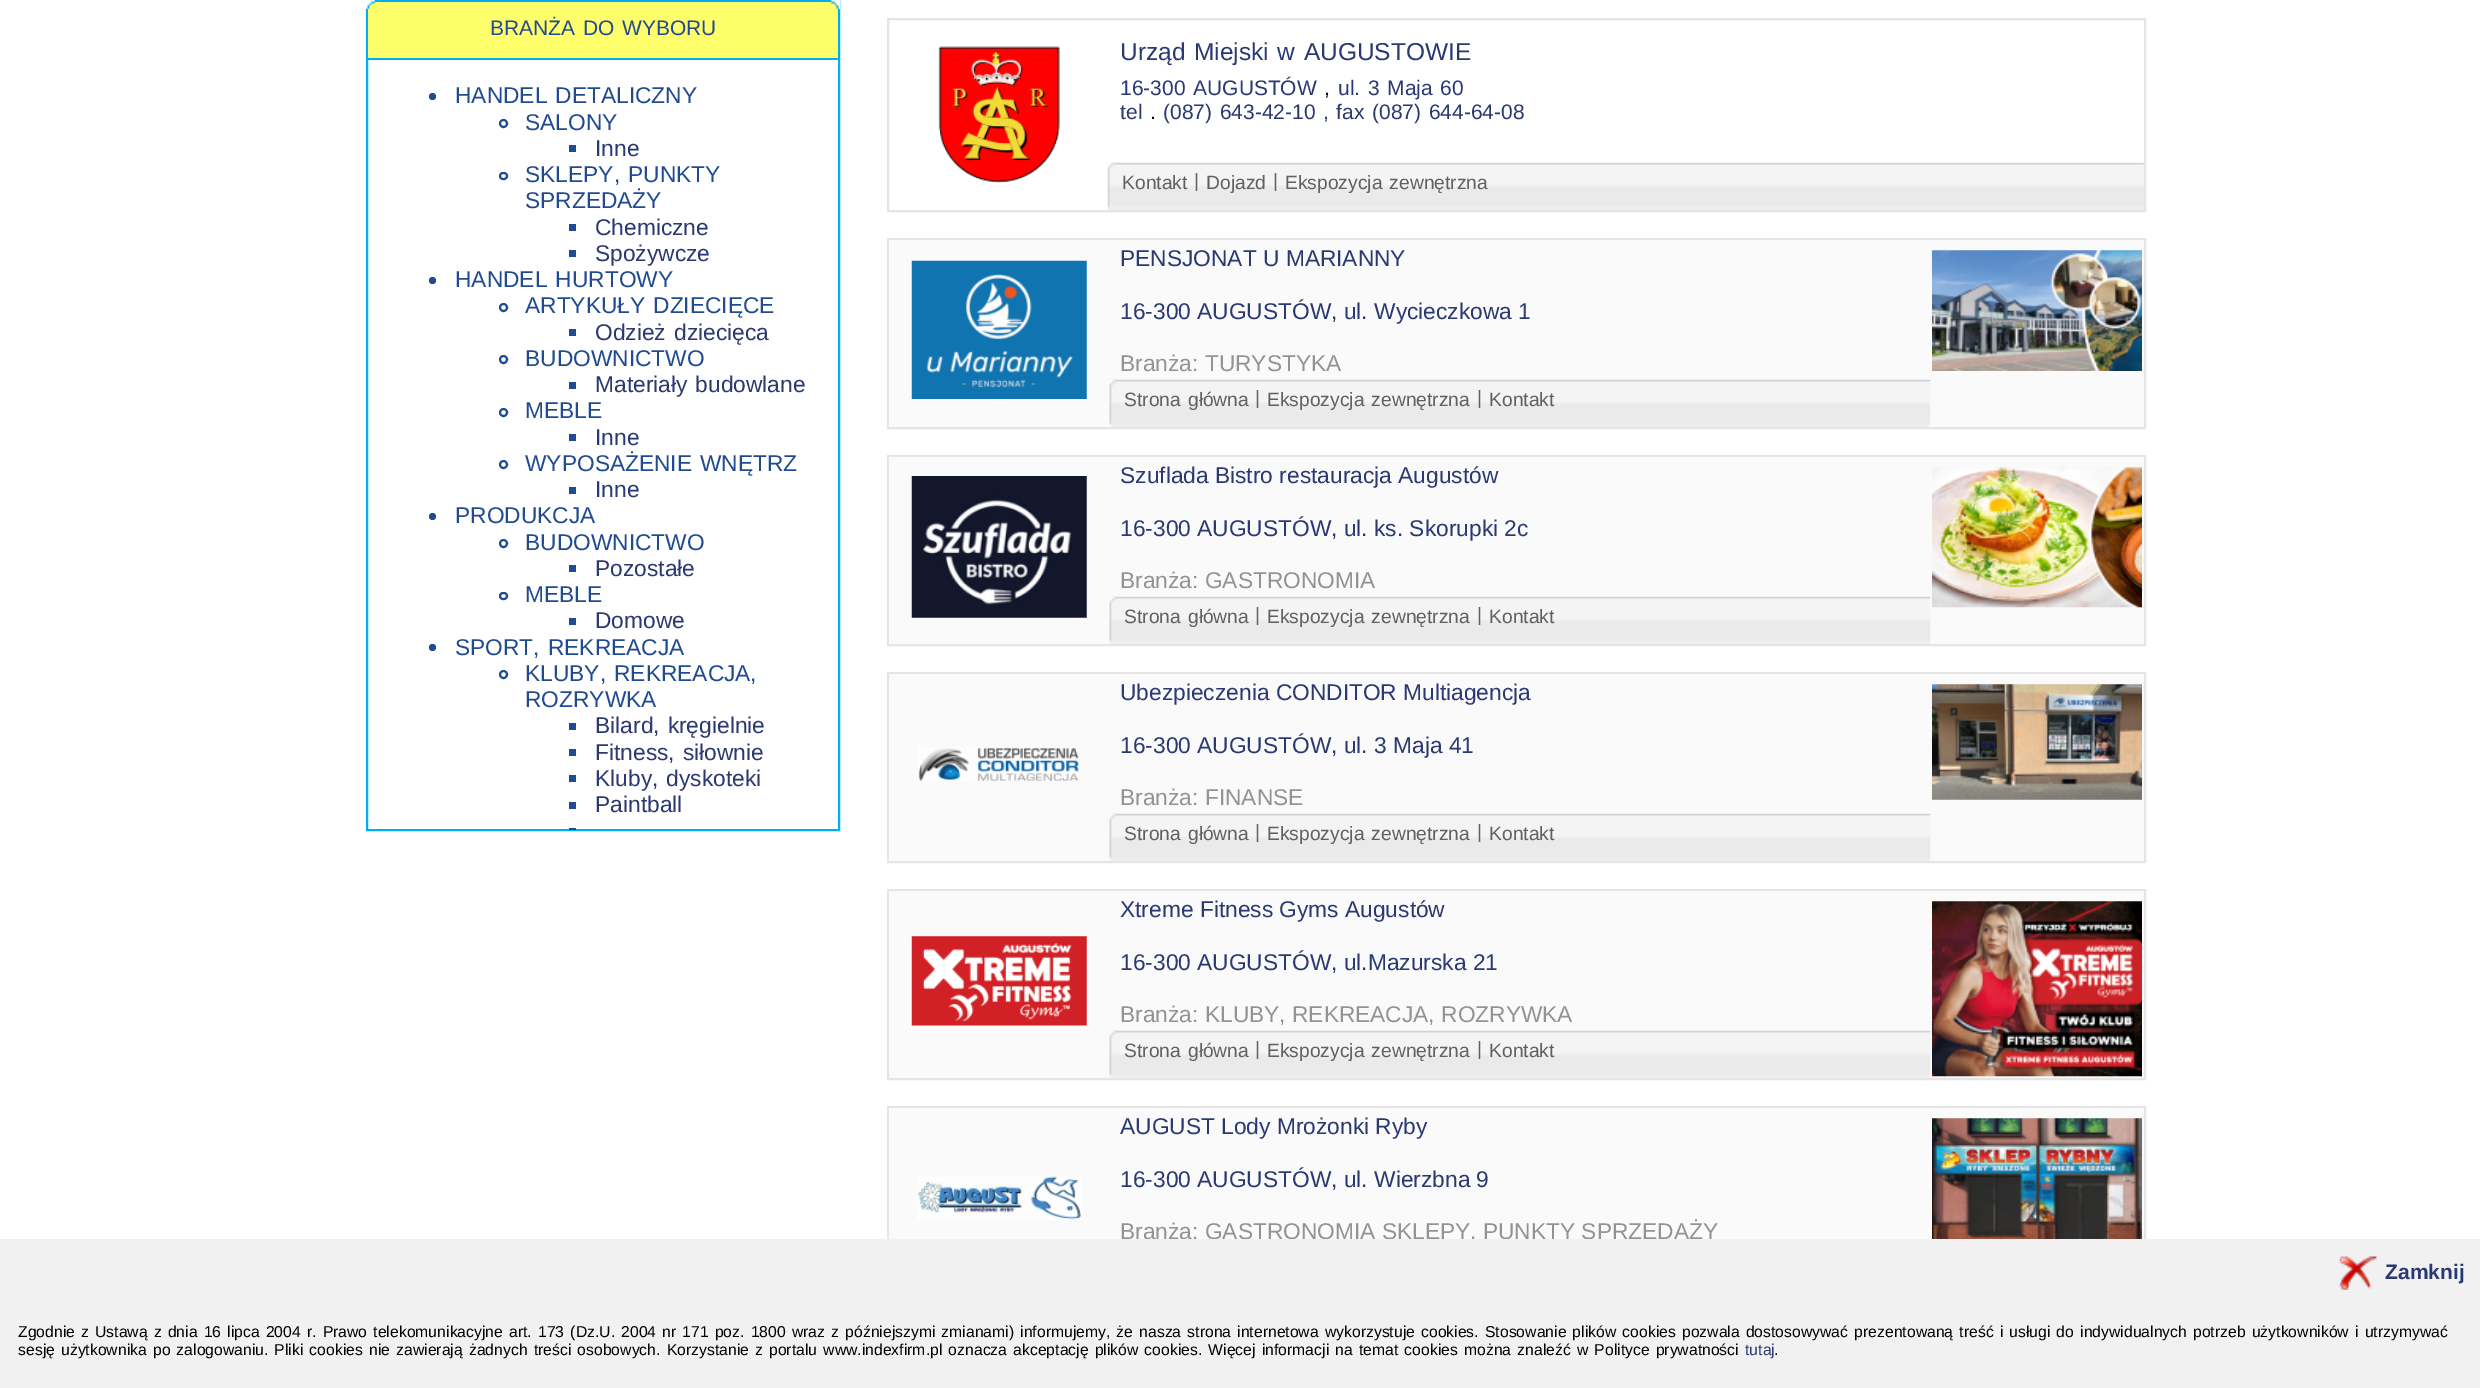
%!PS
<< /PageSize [2480 1388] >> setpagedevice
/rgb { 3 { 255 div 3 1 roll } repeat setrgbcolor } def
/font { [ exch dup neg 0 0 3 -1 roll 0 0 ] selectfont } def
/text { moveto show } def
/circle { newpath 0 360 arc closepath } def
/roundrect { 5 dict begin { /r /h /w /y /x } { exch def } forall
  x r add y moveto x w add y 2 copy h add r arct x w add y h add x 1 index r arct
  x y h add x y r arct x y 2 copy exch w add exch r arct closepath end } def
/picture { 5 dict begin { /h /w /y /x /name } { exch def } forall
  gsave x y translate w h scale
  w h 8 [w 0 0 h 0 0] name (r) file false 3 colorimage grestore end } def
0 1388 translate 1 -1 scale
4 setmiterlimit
255 255 255 rgb
0 0 2480 1388 rectfill
0 174 239 rgb
2 setlinewidth
367 1 472 829 rectstroke
255 255 108 rgb
368 2 470 56 rectfill
(img_01.rgb) 365 0 12 11 picture
(img_02.rgb) 829 0 11 11 picture
0 174 239 rgb
368 58 470 2 rectfill
32 74 145 rgb
432.5 96.5 3.5 circle fill
503.5 123.5 3.5 circle stroke
569 145 7 7 rectfill
500 173 7 6 3 roundrect stroke
569 224 7 7 rectfill
569 250 7 7 rectfill
432.5 280.5 3.5 circle fill
503.5 307.5 3.5 circle stroke
569 329 7 7 rectfill
503.5 359.5 3.5 circle stroke
569 382 7 7 rectfill
503.5 412.5 3.5 circle stroke
569 434 7 7 rectfill
503.5 464.5 3.5 circle stroke
569 487 7 7 rectfill
432.5 516.5 3.5 circle fill
503.5 543.5 3.5 circle stroke
569 565 7 7 rectfill
500 593 7 6 3 roundrect stroke
569 618 7 7 rectfill
432.5 647.5 3.5 circle fill
503.5 674.5 3.5 circle stroke
569 723 7 7 rectfill
569 749 7 7 rectfill
569 775 7 7 rectfill
569 802 7 7 rectfill
569 828 7 2 rectfill
229 229 229 rgb
888 19 1257 192 rectstroke
(img_03.rgb) 938 46 122 137 picture
238 238 238 rgb
1108 163 1036 47 rectfill
(img_04.rgb) 1107 162 1037 44 picture
(img_05.rgb) 1107 162 8 45 picture
229 229 229 rgb
888 239 1257 189 rectstroke
250 250 251 rgb
889 240 1255 187 rectfill
(img_06.rgb) 911 260 176 139 picture
238 238 238 rgb
1110 423 820 4 rectfill
(img_07.rgb) 1109 379 822 45 picture
(img_08.rgb) 1109 379 8 45 picture
(img_09.rgb) 1932 250 210 121 picture
229 229 229 rgb
888 456 1257 189 rectstroke
250 250 251 rgb
889 457 1255 187 rectfill
(img_10.rgb) 911 476 176 142 picture
238 238 238 rgb
1110 640 820 4 rectfill
(img_07.rgb) 1109 596 822 45 picture
(img_08.rgb) 1109 596 8 45 picture
(img_11.rgb) 1932 467 210 141 picture
229 229 229 rgb
888 673 1257 189 rectstroke
250 250 251 rgb
889 674 1255 187 rectfill
(img_12.rgb) 918 747 161 34 picture
238 238 238 rgb
1110 857 820 4 rectfill
(img_07.rgb) 1109 813 822 45 picture
(img_08.rgb) 1109 813 8 45 picture
(img_13.rgb) 1932 684 210 116 picture
229 229 229 rgb
888 890 1257 189 rectstroke
250 250 251 rgb
889 891 1255 187 rectfill
(img_14.rgb) 911 936 176 90 picture
238 238 238 rgb
1110 1074 820 4 rectfill
(img_07.rgb) 1109 1030 822 45 picture
(img_08.rgb) 1109 1030 8 45 picture
(img_15.rgb) 1932 901 210 176 picture
229 229 229 rgb
888 1107 1257 189 rectstroke
250 250 251 rgb
889 1108 1255 131 rectfill
(img_16.rgb) 917 1176 164 44 picture
(img_17.rgb) 1932 1118 210 121 picture
/LiberationSans-Regular 21 font
32 74 145 rgb
490 35 moveto 1.75 0 32 (BRANŻA DO WYBORU) widthshow
/LiberationSans-Regular 22.75 font
455 103 moveto 1.75 0 32 (HANDEL DETALICZNY) widthshow
(SALONY) 525 130 text
42 57 114 rgb
(Inne) 595 156 text
32 74 145 rgb
525 182 moveto 1.75 0 32 (SKLEPY, PUNKTY) widthshow
(SPRZEDAŻY) 525 208 text
42 57 114 rgb
(Chemiczne) 595 235 text
(Spożywcze) 595 261 text
32 74 145 rgb
455 287 moveto 1.75 0 32 (HANDEL HURTOWY) widthshow
525 313 moveto 1.75 0 32 (ARTYKUŁY DZIECIĘCE) widthshow
42 57 114 rgb
595 340 moveto 1.75 0 32 (Odzież dziecięca) widthshow
32 74 145 rgb
(BUDOWNICTWO) 525 366 text
42 57 114 rgb
595 392 moveto 1.75 0 32 (Materiały budowlane) widthshow
32 74 145 rgb
(MEBLE) 525 418 text
42 57 114 rgb
(Inne) 595 445 text
32 74 145 rgb
525 471 moveto 1.75 0 32 (WYPOSAŻENIE WNĘTRZ) widthshow
42 57 114 rgb
(Inne) 595 497 text
32 74 145 rgb
(PRODUKCJA) 455 523 text
(BUDOWNICTWO) 525 550 text
42 57 114 rgb
(Pozostałe) 595 576 text
32 74 145 rgb
(MEBLE) 525 602 text
42 57 114 rgb
(Domowe) 595 628 text
32 74 145 rgb
455 655 moveto 1.75 0 32 (SPORT, REKREACJA) widthshow
525 681 moveto 1.75 0 32 (KLUBY, REKREACJA,) widthshow
(ROZRYWKA) 525 707 text
42 57 114 rgb
595 733 moveto 1.75 0 32 (Bilard, kręgielnie) widthshow
595 760 moveto 1.75 0 32 (Fitness, siłownie) widthshow
595 786 moveto 1.75 0 32 (Kluby, dyskoteki) widthshow
(Paintball) 595 812 text
/LiberationSans-Regular 24.5 font
1120 60 moveto 1.75 0 32 (Urząd Miejski w AUGUSTOWIE) widthshow
/LiberationSans-Regular 21 font
(16-300) 1120 95 text
(AUGUSTÓW) 1193 95 text
0 0 0 rgb
(,) 1324 95 text
42 57 114 rgb
1338 95 moveto 1.75 0 32 (ul. 3 Maja 60) widthshow
(tel) 1120 119 text
0 0 0 rgb
(.) 1150 119 text
42 57 114 rgb
1163 119 moveto 1.75 0 32 (\(087\) 643-42-10) widthshow
1323 119 moveto 1.75 0 32 (, fax \(087\) 644-64-08) widthshow
/LiberationSans-Regular 19.25 font
97 97 98 rgb
(Kontakt) 1122 189 text
(|) 1194 187 text
(Dojazd) 1206 189 text
(|) 1273 187 text
1285 189 moveto 1.75 0 32 (Ekspozycja zewnętrzna) widthshow
/LiberationSans-Regular 22.75 font
42 57 114 rgb
(PENSJONAT U MARIANNY) 1120 266 text
(16-300 AUGUSTÓW, ul. Wycieczkowa 1) 1120 319 text
147 147 147 rgb
(Branża: TURYSTYKA) 1120 371 text
/LiberationSans-Regular 19.25 font
97 97 98 rgb
1124 406 moveto 1.75 0 32 (Strona główna) widthshow
(|) 1255 404 text
1267 406 moveto 1.75 0 32 (Ekspozycja zewnętrzna) widthshow
(|) 1477 404 text
(Kontakt) 1489 406 text
/LiberationSans-Regular 22.75 font
42 57 114 rgb
(Szuflada Bistro restauracja Augustów) 1120 483 text
(16-300 AUGUSTÓW, ul. ks. Skorupki 2c) 1120 536 text
147 147 147 rgb
(Branża: GASTRONOMIA) 1120 588 text
/LiberationSans-Regular 19.25 font
97 97 98 rgb
1124 623 moveto 1.75 0 32 (Strona główna) widthshow
(|) 1255 621 text
1267 623 moveto 1.75 0 32 (Ekspozycja zewnętrzna) widthshow
(|) 1477 621 text
(Kontakt) 1489 623 text
/LiberationSans-Regular 22.75 font
42 57 114 rgb
(Ubezpieczenia CONDITOR Multiagencja) 1120 700 text
(16-300 AUGUSTÓW, ul. 3 Maja 41) 1120 753 text
147 147 147 rgb
(Branża: FINANSE) 1120 805 text
/LiberationSans-Regular 19.25 font
97 97 98 rgb
1124 840 moveto 1.75 0 32 (Strona główna) widthshow
(|) 1255 838 text
1267 840 moveto 1.75 0 32 (Ekspozycja zewnętrzna) widthshow
(|) 1477 838 text
(Kontakt) 1489 840 text
/LiberationSans-Regular 22.75 font
42 57 114 rgb
(Xtreme Fitness Gyms Augustów) 1120 917 text
(16-300 AUGUSTÓW, ul.Mazurska 21) 1120 970 text
147 147 147 rgb
(Branża: KLUBY, REKREACJA, ROZRYWKA) 1120 1022 text
/LiberationSans-Regular 19.25 font
97 97 98 rgb
1124 1057 moveto 1.75 0 32 (Strona główna) widthshow
(|) 1255 1055 text
1267 1057 moveto 1.75 0 32 (Ekspozycja zewnętrzna) widthshow
(|) 1477 1055 text
(Kontakt) 1489 1057 text
/LiberationSans-Regular 22.75 font
42 57 114 rgb
(AUGUST Lody Mrożonki Ryby) 1120 1134 text
(16-300 AUGUSTÓW, ul. Wierzbna 9) 1120 1187 text
147 147 147 rgb
(Branża: GASTRONOMIA SKLEPY, PUNKTY SPRZEDAŻY) 1120 1239 text
241 241 241 rgb
0 1239 2480 149 rectfill
(img_18.rgb) 2339 1256 38 34 picture
/LiberationSans-Bold 21 font
42 57 114 rgb
(Zamknij) 2385 1279 text
/LiberationSans-Regular 15.75 font
0 0 0 rgb
18 1337 moveto 1.75 0 32 (Zgodnie z Ustawą z dnia 16 lipca 2004 r. Prawo telekomunikacyjne art. 173 \(Dz.U. 2004 nr 171 poz. 1800 wraz z późniejszymi zmianami\) informujemy, że nasza strona internetowa wykorzystuje cookies. Stosowanie plików cookies pozwala dostosowywać prezentowaną treść i usługi do indywidualnych potrzeb użytkowników i utrzymywać) widthshow
18 1355 moveto 1.75 0 32 (sesję użytkownika po zalogowaniu. Pliki cookies nie zawierają żadnych treści osobowych. Korzystanie z portalu www.indexfirm.pl oznacza akceptację plików cookies. Więcej informacji na temat cookies można znaleźć w Polityce prywatności) widthshow
42 57 114 rgb
(tutaj) 1745 1355 text
0 0 0 rgb
(.) 1774 1355 text
showpage
